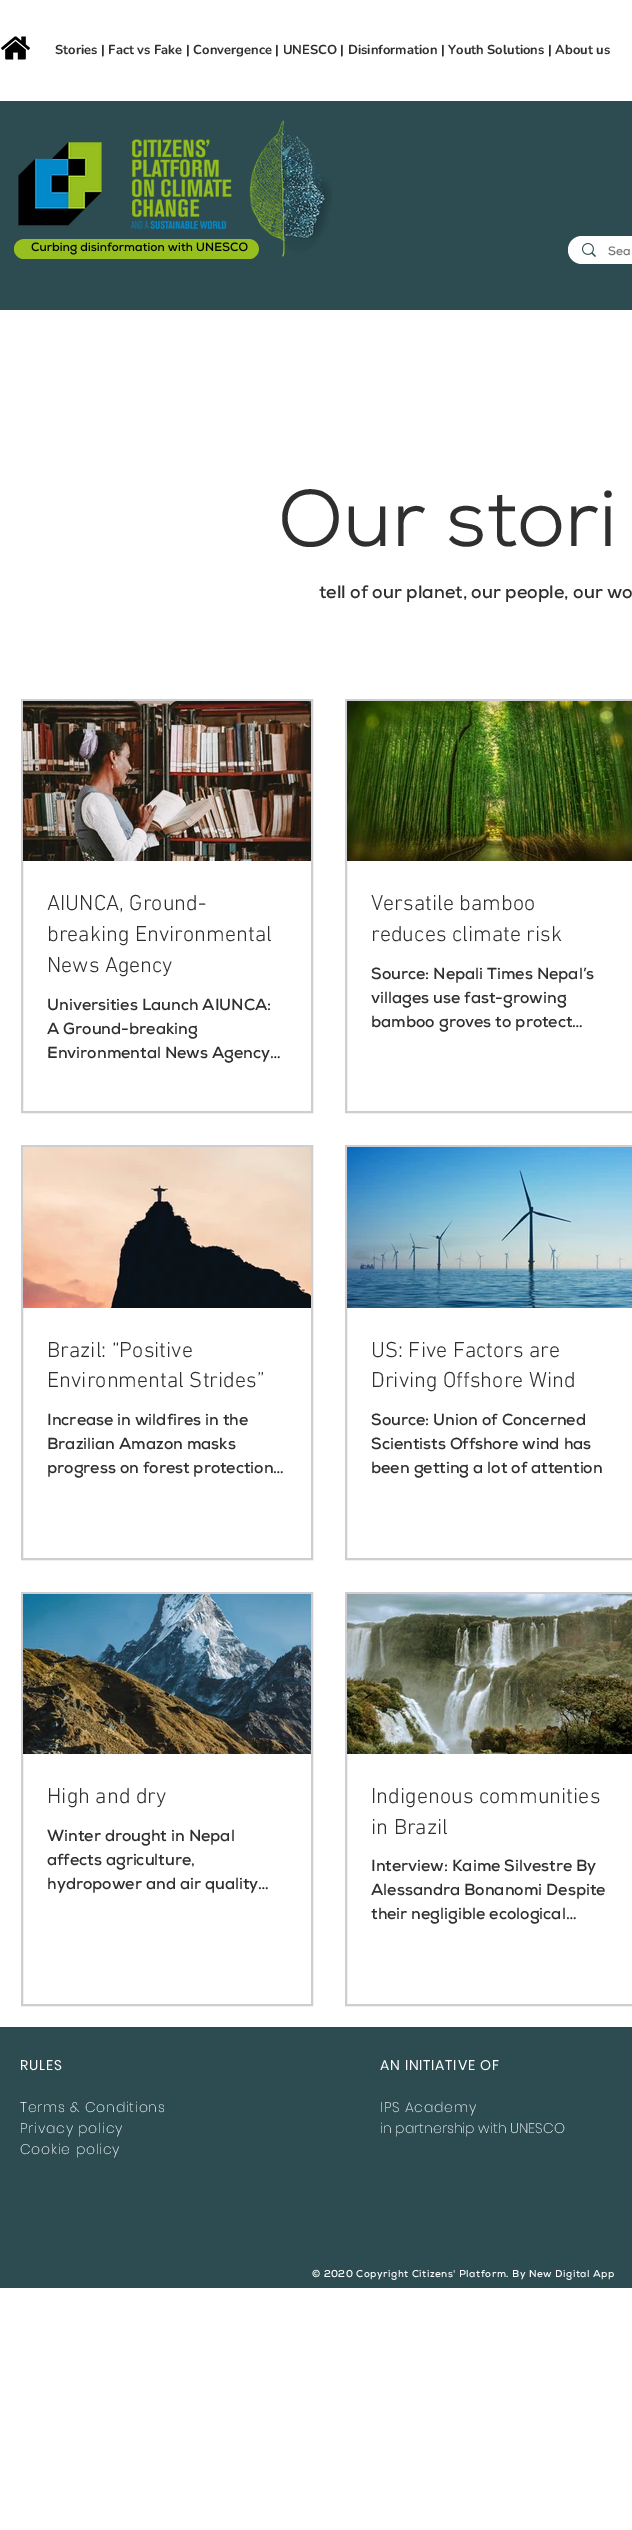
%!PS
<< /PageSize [632 2530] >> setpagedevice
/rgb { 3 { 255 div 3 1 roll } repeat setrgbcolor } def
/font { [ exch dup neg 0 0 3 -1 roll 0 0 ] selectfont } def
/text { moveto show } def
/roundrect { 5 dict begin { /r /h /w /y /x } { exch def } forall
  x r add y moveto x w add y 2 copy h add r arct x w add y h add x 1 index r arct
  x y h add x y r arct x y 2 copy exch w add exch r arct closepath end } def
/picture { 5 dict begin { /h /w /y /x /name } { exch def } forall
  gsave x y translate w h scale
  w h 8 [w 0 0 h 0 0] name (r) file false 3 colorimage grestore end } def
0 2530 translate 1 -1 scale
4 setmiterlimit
255 255 255 rgb
0 0 632 2530 rectfill
(img_01.rgb) 1 36 29 24 picture
44 76 81 rgb
0 101 632 209 rectfill
151 191 31 rgb
14 239 245 20 10 roundrect fill
255 255 255 rgb
568 236 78 28 14 roundrect fill
(img_03.rgb) 582 243 14 14 picture
206 205 209 rgb
2 setlinewidth
22 700 290 412 rectstroke
(img_04.rgb) 23 701 288 160 picture
346 700 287 412 rectstroke
(img_05.rgb) 347 701 285 160 picture
22 1146 290 413 rectstroke
(img_06.rgb) 23 1147 288 161 picture
346 1146 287 413 rectstroke
(img_07.rgb) 347 1147 285 161 picture
22 1593 290 412 rectstroke
(img_08.rgb) 23 1594 288 160 picture
346 1593 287 412 rectstroke
(img_09.rgb) 347 1594 285 160 picture
44 76 81 rgb
0 2027 632 261 rectfill
/Nunito-Bold 13 font
47 47 48 rgb
(Stories | Fact vs Fake | Convergence | UNESCO | Disinformation | Youth Solutions | About us) 55 54 text
/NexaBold-Bold 12 font
0 0 0 rgb
(Curbing disinformation with UNESCO) 31 251 text
(img_02.rgb) 18 120 314 137 picture
120 120 120 rgb
(Sea) 608 255 text
/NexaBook-Regular 80 font
47 47 48 rgb
(Our stori) 278 546 text
/NexaBold-Bold 18 font
(tell of our planet, our people, our wo) 319 598 text
/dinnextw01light-Light 22 font
(AIUNCA, Ground-) 47 910 text
(breaking Environmental) 47 941 text
(News Agency) 47 972 text
/NexaBold-Bold 16 font
(Universities Launch AIUNCA:) 47 1010 text
(A Ground-breaking) 47 1034 text
(Environmental News Agency…) 47 1058 text
/dinnextw01light-Light 22 font
(Versatile bamboo) 371 910 text
(reduces climate risk) 371 941 text
/NexaBold-Bold 16 font
(Source: Nepali Times Nepal’s) 371 979 text
(villages use fast-growing) 371 1003 text
(bamboo groves to protect…) 371 1027 text
/dinnextw01light-Light 22 font
(Brazil: “Positive) 47 1357 text
(Environmental Strides”) 47 1387 text
/NexaBold-Bold 16 font
(Increase in wildfires in the) 47 1425 text
(Brazilian Amazon masks) 47 1449 text
(progress on forest protection…) 47 1473 text
/dinnextw01light-Light 22 font
(US: Five Factors are) 371 1357 text
(Driving Offshore Wind) 371 1387 text
/NexaBold-Bold 16 font
(Source: Union of Concerned) 371 1425 text
(Scientists Offshore wind has) 371 1449 text
(been getting a lot of attention) 371 1473 text
/dinnextw01light-Light 22 font
(High and dry) 47 1803 text
/NexaBold-Bold 16 font
(Winter drought in Nepal) 47 1841 text
(affects agriculture,) 47 1865 text
(hydropower and air quality…) 47 1889 text
/dinnextw01light-Light 22 font
(Indigenous communities) 371 1803 text
(in Brazil) 371 1834 text
/NexaBold-Bold 16 font
(Interview: Kaime Silvestre By) 371 1871 text
(Alessandra Bonanomi Despite) 371 1895 text
(their negligible ecological…) 371 1919 text
/Poppins-Regular 14 font
255 255 255 rgb
20 2070 moveto 0.75 0 (RULES) ashow
/Poppins-ExtraLight 14 font
20 2112 moveto 0.75 0 (Terms & Conditions) ashow
20 2133 moveto 0.75 0 (Privacy policy) ashow
20 2154 moveto 0.75 0 (Cookie policy) ashow
/Poppins-Regular 14 font
380 2070 moveto 0.75 0 (AN INITIATIVE OF) ashow
/Poppins-ExtraLight 14 font
380 2112 moveto 0.75 0 (IPS Academy) ashow
(in partnership with UNESCO) 380 2133 text
/NexaBold-Bold 10 font
312 2277 moveto 0.5 0 (© 2020 Copyright Citizens' Platform. By New Digital App) ashow
showpage
